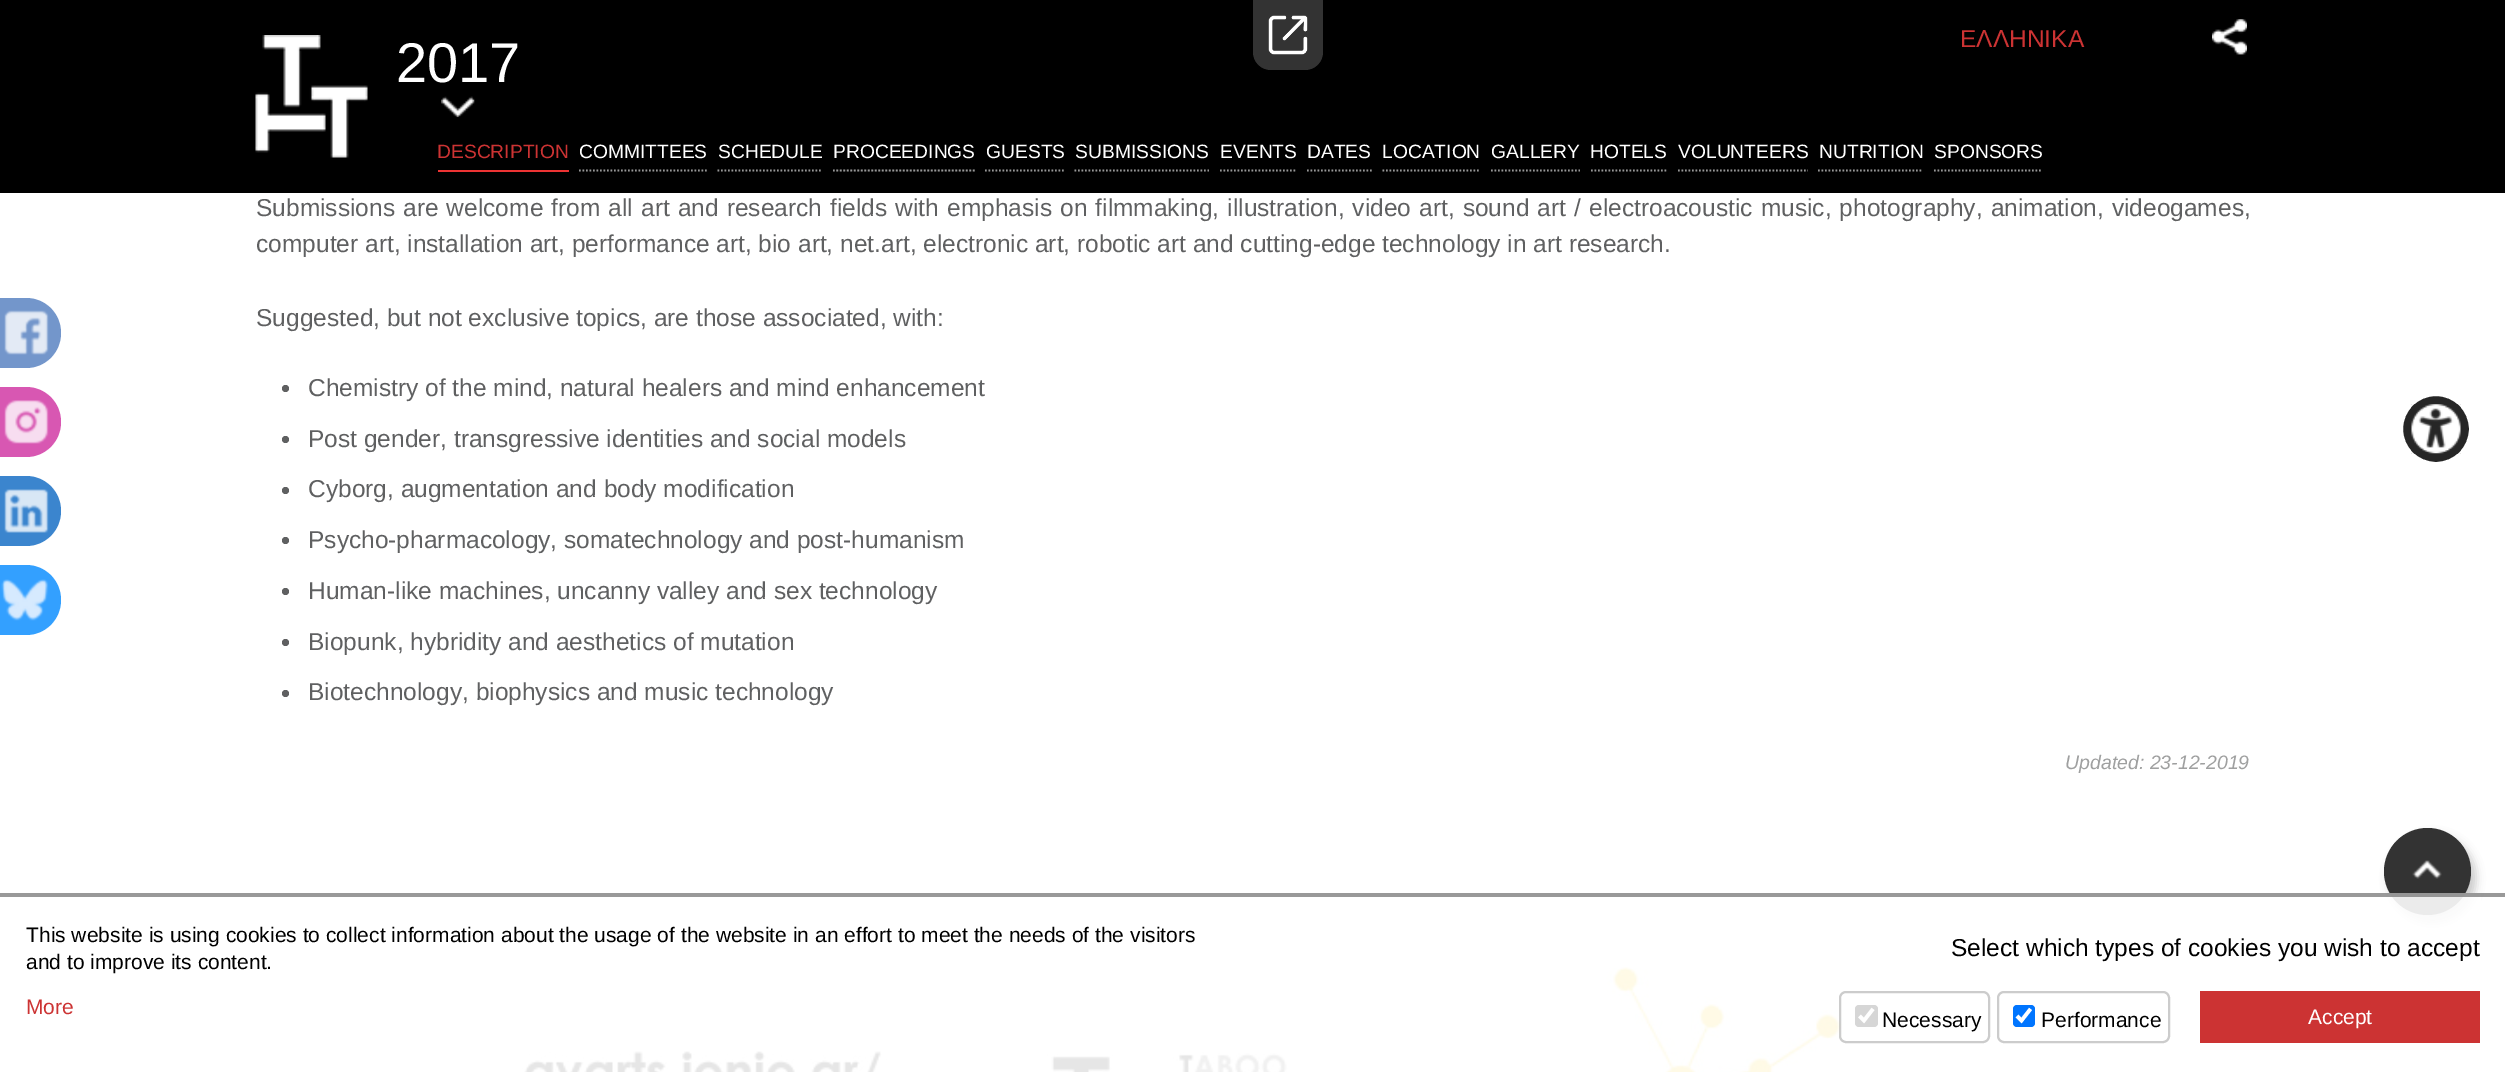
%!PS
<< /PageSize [2505 1072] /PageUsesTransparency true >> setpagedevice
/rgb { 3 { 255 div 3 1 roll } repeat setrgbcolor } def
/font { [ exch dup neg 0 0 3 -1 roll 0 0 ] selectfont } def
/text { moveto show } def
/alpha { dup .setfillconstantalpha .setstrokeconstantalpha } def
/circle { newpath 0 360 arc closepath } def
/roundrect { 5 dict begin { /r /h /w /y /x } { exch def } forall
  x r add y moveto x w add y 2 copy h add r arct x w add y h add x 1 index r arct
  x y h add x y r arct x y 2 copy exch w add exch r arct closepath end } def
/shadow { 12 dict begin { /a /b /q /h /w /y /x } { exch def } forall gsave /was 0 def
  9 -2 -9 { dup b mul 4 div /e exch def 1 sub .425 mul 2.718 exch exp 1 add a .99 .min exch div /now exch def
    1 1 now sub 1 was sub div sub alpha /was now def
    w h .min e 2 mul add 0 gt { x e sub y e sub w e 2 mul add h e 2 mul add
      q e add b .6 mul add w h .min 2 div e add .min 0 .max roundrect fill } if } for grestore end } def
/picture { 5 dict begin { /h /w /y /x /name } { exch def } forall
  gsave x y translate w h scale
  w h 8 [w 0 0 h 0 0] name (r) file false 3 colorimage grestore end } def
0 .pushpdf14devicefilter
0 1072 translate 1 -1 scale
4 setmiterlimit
255 255 255 rgb
0 0 2505 1072 rectfill
115 150 203 rgb
-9 298 moveto 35 0 rlineto 19.5 0 35 15.5 35 35 rcurveto 0 19.5 -15.5 35 -35 35 rcurveto -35 0 rlineto closepath fill
(img_01.rgb) 4 310 45 45 picture
216 87 178 rgb
-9 387 moveto 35 0 rlineto 19.5 0 35 15.5 35 35 rcurveto 0 19.5 -15.5 35 -35 35 rcurveto -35 0 rlineto closepath fill
(img_02.rgb) 4 400 45 44 picture
59 133 206 rgb
-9 476 moveto 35 0 rlineto 19.5 0 35 15.5 35 35 rcurveto 0 19.5 -15.5 35 -35 35 rcurveto -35 0 rlineto closepath fill
(img_03.rgb) 4 489 45 44 picture
51 160 255 rgb
-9 565 moveto 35 0 rlineto 19.5 0 35 15.5 35 35 rcurveto 0 19.5 -15.5 35 -35 35 rcurveto -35 0 rlineto closepath fill
(img_04.rgb) 1 579 48 42 picture
0 0 0 rgb
0 0 2505 193 rectfill
51 51 51 rgb
1253 0 moveto 70 0 rlineto 0 52 rlineto 0 10 -8 18 -18 18 rcurveto -34 0 rlineto -10 0 -18 -8 -18 -18 rcurveto closepath fill
(img_05.rgb) 1268 15 40 40 picture
(img_06.rgb) 2212 19 35 36 picture
237 51 51 rgb
438 170 131 2 rectfill
152 152 152 rgb
1.8 setlinewidth
[1.75 1.75] 0 setdash
579 170.5 moveto 128 0 rlineto stroke
717.5 170.5 moveto 105 0 rlineto stroke
833 170.5 moveto 142 0 rlineto stroke
985 170.5 moveto 79 0 rlineto stroke
1074.5 170.5 moveto 134.5 0 rlineto stroke
1220 170.5 moveto 77 0 rlineto stroke
1307 170.5 moveto 65 0 rlineto stroke
1382.5 170.5 moveto 98 0 rlineto stroke
1491 170.5 moveto 89 0 rlineto stroke
1591 170.5 moveto 77 0 rlineto stroke
1678 170.5 moveto 130 0 rlineto stroke
1818 170.5 moveto 105 0 rlineto stroke
1934 170.5 moveto 108 0 rlineto stroke
(img_07.rgb) 255 35 113 123 picture
(img_08.rgb) 441 96 34 22 picture
95 96 97 rgb
285.5 388.5 3.5 circle fill
285.5 439.5 3.5 circle fill
285.5 490.5 3.5 circle fill
285.5 540.5 3.5 circle fill
285.5 591.5 3.5 circle fill
285.5 642.5 3.5 circle fill
285.5 693.5 3.5 circle fill
0 0 0 rgb
2389 835 87 87 43.5 4.5 0.2 shadow
51 51 51 rgb
2427.5 871.5 43.5 circle fill
(img_09.rgb) 2412 860 30 19 picture
(img_10.rgb) 517 1051 370 21 picture
(img_11.rgb) 1046 1052 249 20 picture
(img_12.rgb) 1606 967 239 105 picture
38 38 38 rgb
2436 429 34 circle gsave fill grestore
255 255 255 rgb
2 setlinewidth
[] 0 setdash
stroke
(img_13.rgb) 2411 404 50 50 picture
0.9 alpha
517 893 1964 179 rectfill
0.8 alpha
127 127 127 rgb
0 893 2505 4 rectfill
0.2 alpha
0 0 0 rgb
1840 992 149 50 6 roundrect stroke
1 alpha
214 214 214 rgb
1855 1005 23 22 4 roundrect fill
255 255 255 rgb
3.6 setlinewidth
1859.5 1016 moveto 4.5 4.5 rlineto 9 -11.5 rlineto stroke
204 204 204 rgb
2 setlinewidth
1998 992 171 50 6 roundrect stroke
0 117 255 rgb
2013 1005 22 22 4 roundrect fill
255 255 255 rgb
3.6 setlinewidth
2017 1016 moveto 4.5 4.5 rlineto 9 -11.5 rlineto stroke
204 51 51 rgb
2200 991 280 52 rectfill
/LiberationSans-Regular 24.5 font
(ΕΛΛΗΝΙΚΑ) 1960 47 text
/LiberationSans-Regular 19.25 font
(DESCRIPTION) 437 158 text
255 255 255 rgb
(COMMITTEES) 579 158 text
(SCHEDULE) 718 158 text
(PROCEEDINGS) 833 158 text
(GUESTS) 986 158 text
(SUBMISSIONS) 1075 158 text
(EVENTS) 1220 158 text
(DATES) 1307 158 text
(LOCATION) 1382 158 text
(GALLERY) 1491 158 text
(HOTELS) 1590 158 text
(VOLUNTEERS) 1678 158 text
(NUTRITION) 1819 158 text
(SPONSORS) 1934 158 text
/LiberationSans-Regular 56 font
(2017) 396 82 text
/LiberationSans-Regular 24.5 font
95 96 97 rgb
256 216 moveto 1.3 0 32 (Submissions are welcome from all art and research fields with emphasis on filmmaking, illustration, video art, sound art / electroacoustic music, photography, animation, videogames,) widthshow
(computer art, installation art, performance art, bio art, net.art, electronic art, robotic art and cutting-edge technology in art research.) 256 252 text
(Suggested, but not exclusive topics, are those associated, with:) 256 326 text
(Chemistry of the mind, natural healers and mind enhancement) 308 396 text
(Post gender, transgressive identities and social models) 308 447 text
(Cyborg, augmentation and bοdy modification) 308 497 text
(Psycho-pharmacology, somatechnology and post-humanism) 308 548 text
(Human-like machines, uncanny valley and sex technology) 308 599 text
(Biopunk, hybridity and aesthetics of mutation) 308 650 text
(Biotechnology, biophysics and music technology) 308 700 text
/LiberationSans-Italic 19.5 font
159 160 160 rgb
(Updated: 23-12-2019) 2065 769 text
/LiberationSans-Regular 21 font
0 0 0 rgb
(This website is using cookies to collect information about the usage of the website in an effort to meet the needs of the visitors) 26 942 text
(and to improve its content.) 26 969 text
204 51 51 rgb
(More) 26 1014 text
/LiberationSans-Regular 24.5 font
0 0 0 rgb
(Select which types of cookies you wish to accept) 1951 956 text
/LiberationSans-Regular 21 font
(Necessary) 1882 1027 text
(Performance) 2041 1027 text
255 255 255 rgb
(Accept) 2308 1024 text
.poppdf14devicefilter showpage
